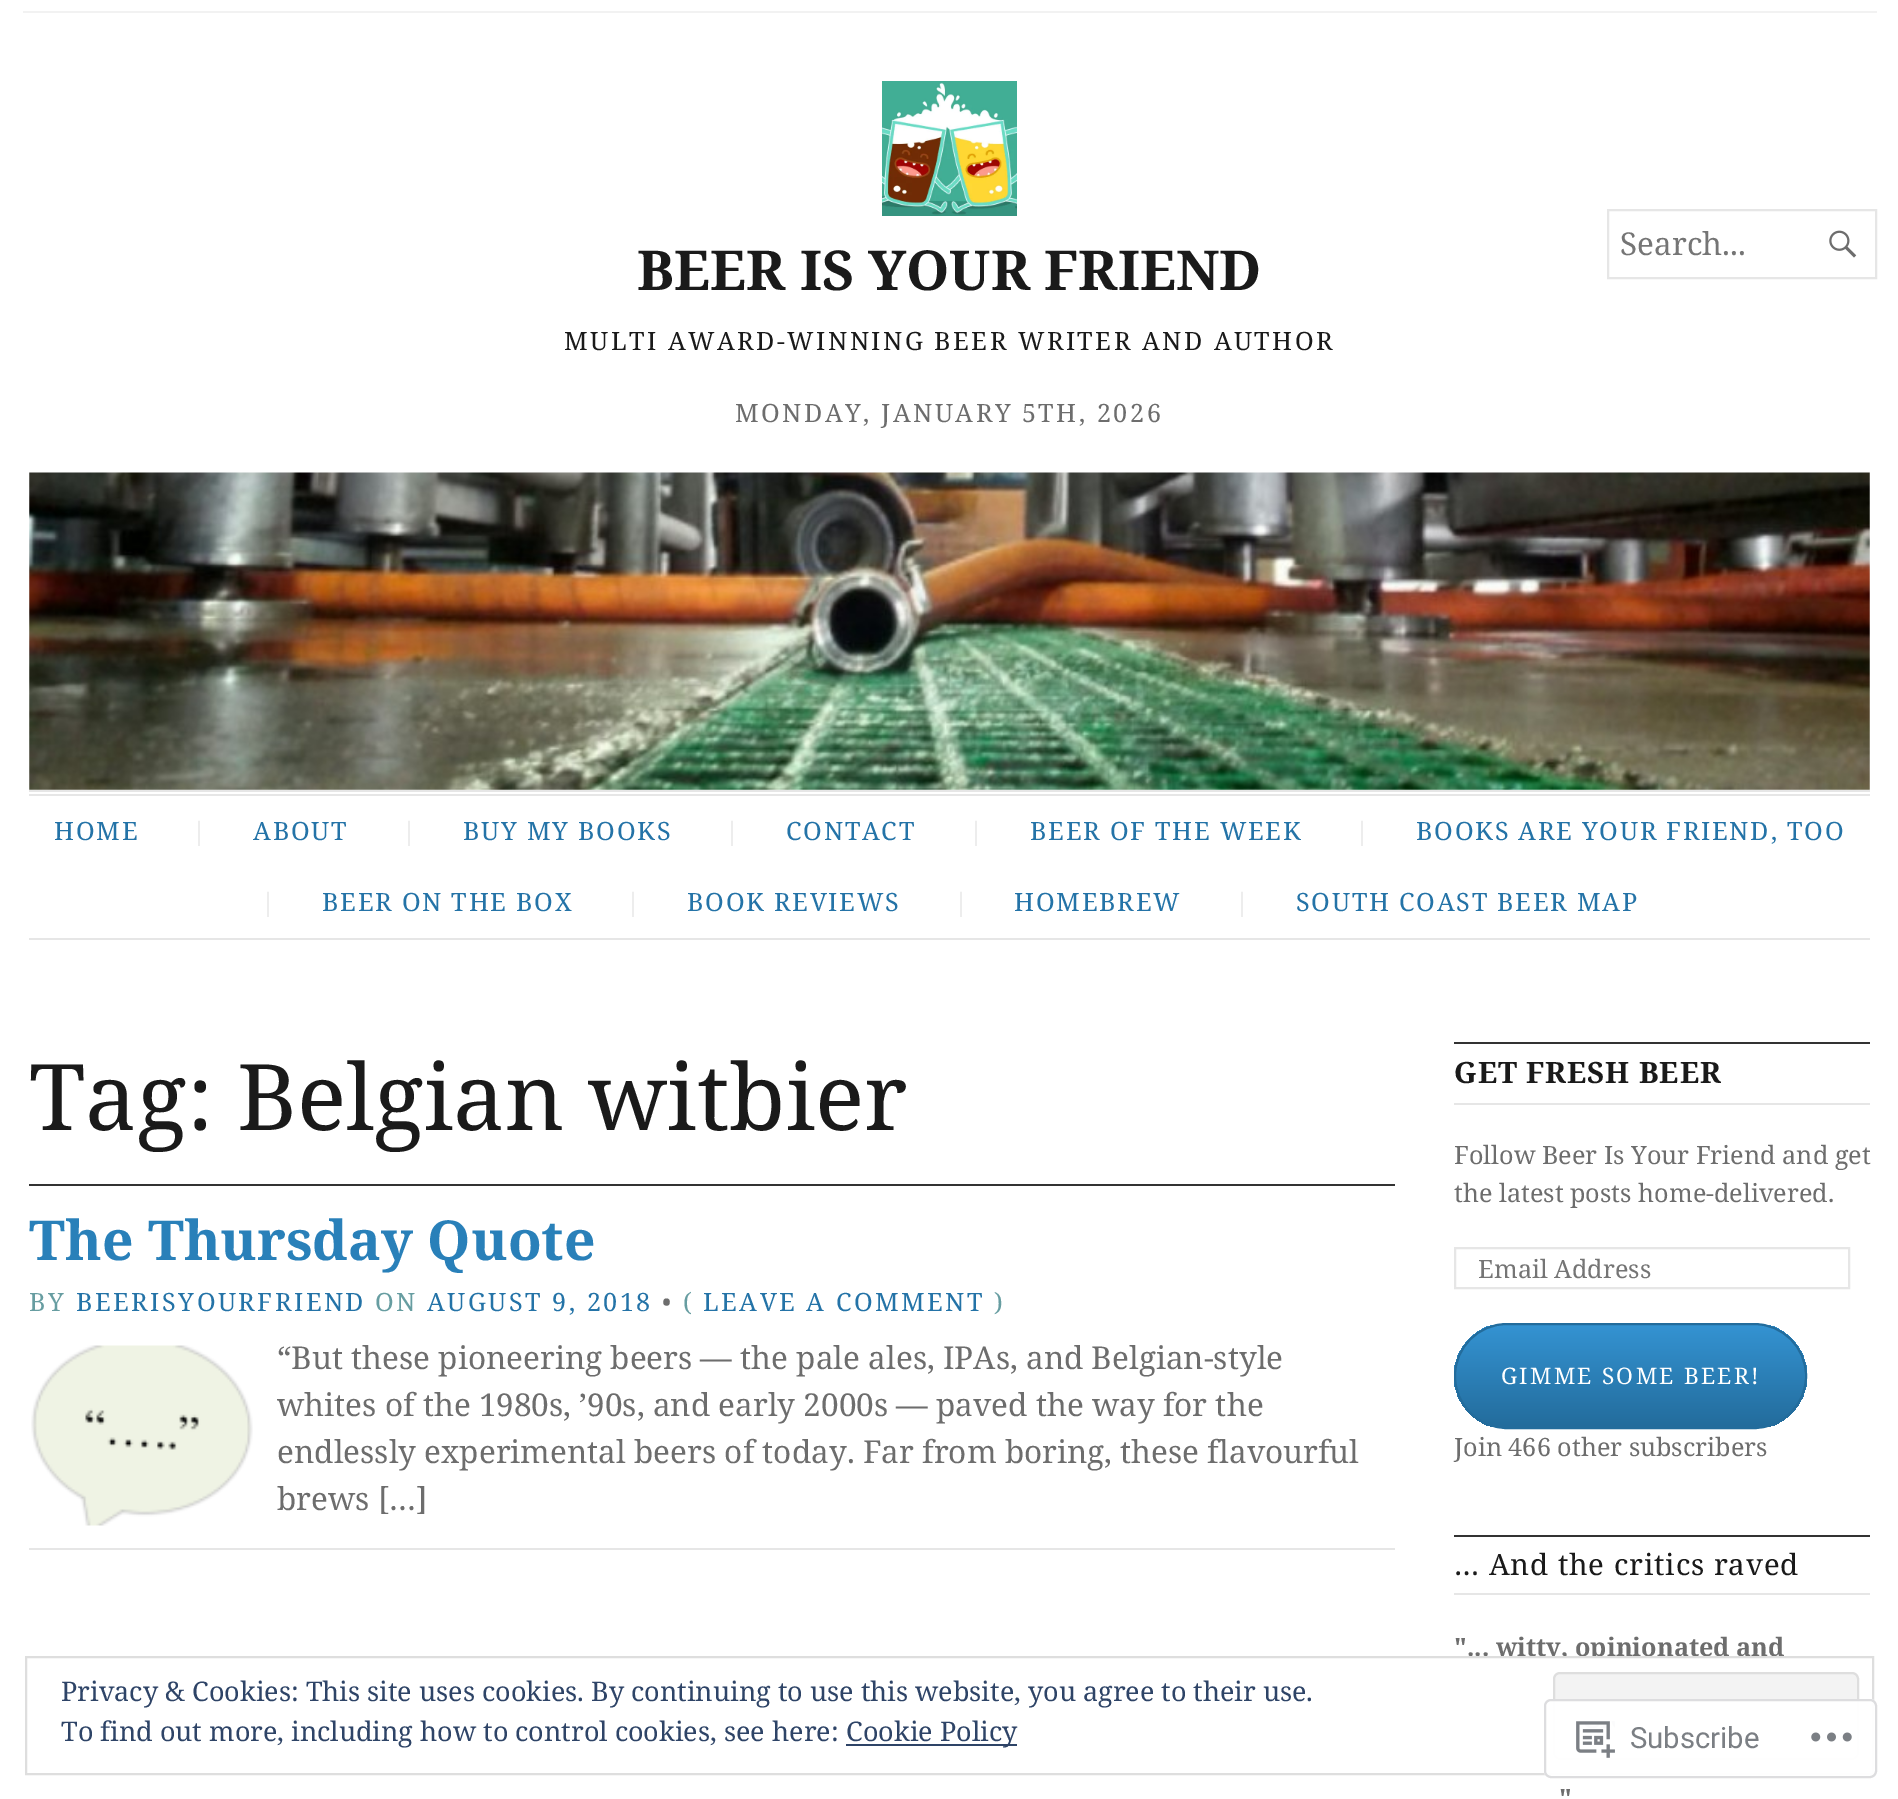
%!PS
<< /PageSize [1898 1799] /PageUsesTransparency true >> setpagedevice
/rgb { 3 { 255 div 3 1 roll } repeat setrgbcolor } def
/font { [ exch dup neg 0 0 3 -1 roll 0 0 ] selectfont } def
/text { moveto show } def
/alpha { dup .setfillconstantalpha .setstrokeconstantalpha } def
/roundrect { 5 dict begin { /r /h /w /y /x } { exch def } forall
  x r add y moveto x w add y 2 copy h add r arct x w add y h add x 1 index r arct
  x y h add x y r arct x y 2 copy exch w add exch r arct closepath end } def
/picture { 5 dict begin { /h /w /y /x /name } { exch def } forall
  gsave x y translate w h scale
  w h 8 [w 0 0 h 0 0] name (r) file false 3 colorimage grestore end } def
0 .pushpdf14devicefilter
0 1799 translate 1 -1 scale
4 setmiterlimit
255 255 255 rgb
0 0 1898 1799 rectfill
242 242 242 rgb
23 11 1854 2 rectfill
230 230 230 rgb
2 setlinewidth
1608 210 268 68 rectstroke
(img_01.rgb) 1829 230 28 28 picture
(img_02.rgb) 882 81 135 135 picture
(img_03.rgb) 29 472 1841 318 picture
29 790 1841 2 rectfill
29 794 1841 2 rectfill
29 938 1841 2 rectfill
51 51 51 rgb
29 1184 1366 2 rectfill
230 230 230 rgb
29 1548 1366 2 rectfill
(img_04.rgb) 31 1345 222 181 picture
51 51 51 rgb
1454 1042 416 2 rectfill
230 230 230 rgb
1454 1103 416 2 rectfill
1455 1248 394 40 rectstroke
gsave
1454 1323 353 106 53 roundrect clip newpath
gsave 1454 1325 moveto 353 0 rlineto 0 102 rlineto -353 0 rlineto closepath clip newpath
<< /ShadingType 2 /ColorSpace /DeviceRGB /Coords [1630 1325 1630 1427] /Extend [true true] /Function << /FunctionType 2 /Domain [0 1] /C0 [0.204 0.576 0.824] /C1 [0.137 0.424 0.612] /N 1 >> >> shfill grestore
grestore
35 108 156 rgb
1455 1324 351 104 52 roundrect stroke
51 51 51 rgb
1454 1535 416 2 rectfill
230 230 230 rgb
1454 1593 416 2 rectfill
/NotoSerif-Regular 31.5 font
117 117 117 rgb
(Search...) 1620 255 text
/NotoSerif-Bold 55.1 font
26 26 26 rgb
(BEER IS YOUR FRIEND) 637 290 text
/NotoSerif-Regular 25.2 font
564 350 moveto 2.5 0 (MULTI AWARD-WINNING BEER WRITER AND AUTHOR) ashow
109 109 109 rgb
735 422 moveto 2.5 0 (MONDAY, JANUARY 5TH, 2026) ashow
36 115 167 rgb
54 840 moveto 1.75 0 (HOME) ashow
230 230 230 rgb
192 840 moveto 1.75 0 (|) ashow
36 115 167 rgb
253 840 moveto 1.75 0 (ABOUT) ashow
230 230 230 rgb
402 840 moveto 1.75 0 (|) ashow
36 115 167 rgb
463 840 moveto 1.75 0 (BUY MY BOOKS) ashow
230 230 230 rgb
725 840 moveto 1.75 0 (|) ashow
36 115 167 rgb
786 840 moveto 1.75 0 (CONTACT) ashow
230 230 230 rgb
969 840 moveto 1.75 0 (|) ashow
36 115 167 rgb
1030 840 moveto 1.75 0 (BEER OF THE WEEK) ashow
230 230 230 rgb
1355 840 moveto 1.75 0 (|) ashow
36 115 167 rgb
1416 840 moveto 1.75 0 (BOOKS ARE YOUR FRIEND, TOO) ashow
230 230 230 rgb
261 911 moveto 1.75 0 (|) ashow
36 115 167 rgb
322 911 moveto 1.75 0 (BEER ON THE BOX) ashow
230 230 230 rgb
626 911 moveto 1.75 0 (|) ashow
36 115 167 rgb
687 911 moveto 1.75 0 (BOOK REVIEWS) ashow
230 230 230 rgb
954 911 moveto 1.75 0 (|) ashow
36 115 167 rgb
1014 911 moveto 1.75 0 (HOMEBREW) ashow
230 230 230 rgb
1235 911 moveto 1.75 0 (|) ashow
36 115 167 rgb
1296 911 moveto 1.75 0 (SOUTH COAST BEER MAP) ashow
/NotoSerif-Regular 91.9 font
26 26 26 rgb
(Tag: Belgian witbier) 29 1130 text
/NotoSerif-Bold 55.1 font
41 128 185 rgb
(The Thursday Quote) 29 1260 text
/NotoSerif-Regular 25.2 font
103 157 161 rgb
29 1311 moveto 2.5 0 (BY) ashow
36 115 167 rgb
76 1311 moveto 2.5 0 (BEERISYOURFRIEND) ashow
103 157 161 rgb
375 1311 moveto 2.5 0 (ON) ashow
36 115 167 rgb
427 1311 moveto 2.5 0 (AUGUST 9, 2018) ashow
109 109 109 rgb
662 1311 moveto 2.5 0 (•) ashow
103 157 161 rgb
683 1311 moveto 2.5 0 (\() ashow
36 115 167 rgb
703 1311 moveto 2.5 0 (LEAVE A COMMENT) ashow
103 157 161 rgb
994 1311 moveto 2.5 0 (\)) ashow
/NotoSerif-Regular 31.5 font
109 109 109 rgb
(“But these pioneering beers — the pale ales, IPAs, and Belgian-style) 277 1369 text
(whites of the 1980s, ’90s, and early 2000s — paved the way for the) 277 1416 text
(endlessly experimental beers of today. Far from boring, these flavourful) 277 1463 text
(brews […]) 277 1510 text
/NotoSerif-Bold 29.4 font
26 26 26 rgb
1454 1083 moveto 0.9 0 (GET FRESH BEER) ashow
/NotoSerif-Regular 25.2 font
109 109 109 rgb
(Follow Beer Is Your Friend and get) 1454 1164 text
(the latest posts home-delivered.) 1454 1202 text
117 117 117 rgb
(Email Address) 1478 1278 text
/NotoSerif-Regular 22.75 font
255 255 255 rgb
1501 1384 moveto 2.25 0 (GIMME SOME BEER!) ashow
/NotoSerif-Regular 25.2 font
109 109 109 rgb
(Join 466 other subscribers) 1454 1456 text
/NotoSerif-Regular 29.4 font
26 26 26 rgb
1454 1575 moveto 0.9 0 (… And the critics raved) ashow
/NotoSerif-Bold 25.2 font
109 109 109 rgb
("... witty, opinionated and) 1454 1656 text
(") 1559 1807 text
255 255 255 rgb
1546 1658 53 4 rectfill
222 222 222 rgb
26 1657 1847 117 rectstroke
/NotoSerif-Regular 27 font
46 68 103 rgb
(Privacy & Cookies: This site uses cookies. By continuing to use this website, you agree to their use.) 61 1701 text
243 243 243 rgb
1554 1673 304 86 6 roundrect gsave fill grestore
222 222 222 rgb
stroke
46 68 103 rgb
(To find out more, including how to control cookies, see here:) 61 1741 text
846 1744 171 2 rectfill
(Cookie Policy) 846 1741 text
0.98 alpha
255 255 255 rgb
1544 1699 333 79 7 roundrect fill
220 220 222 rgb
1545 1700 331 77 6 roundrect stroke
1 alpha
(img_05.rgb) 1576 1721 39 37 picture
/Roboto-Regular 29.25 font
123 127 132 rgb
(Subscribe) 1630 1748 text
(img_06.rgb) 1811 1732 41 10 picture
.poppdf14devicefilter showpage
